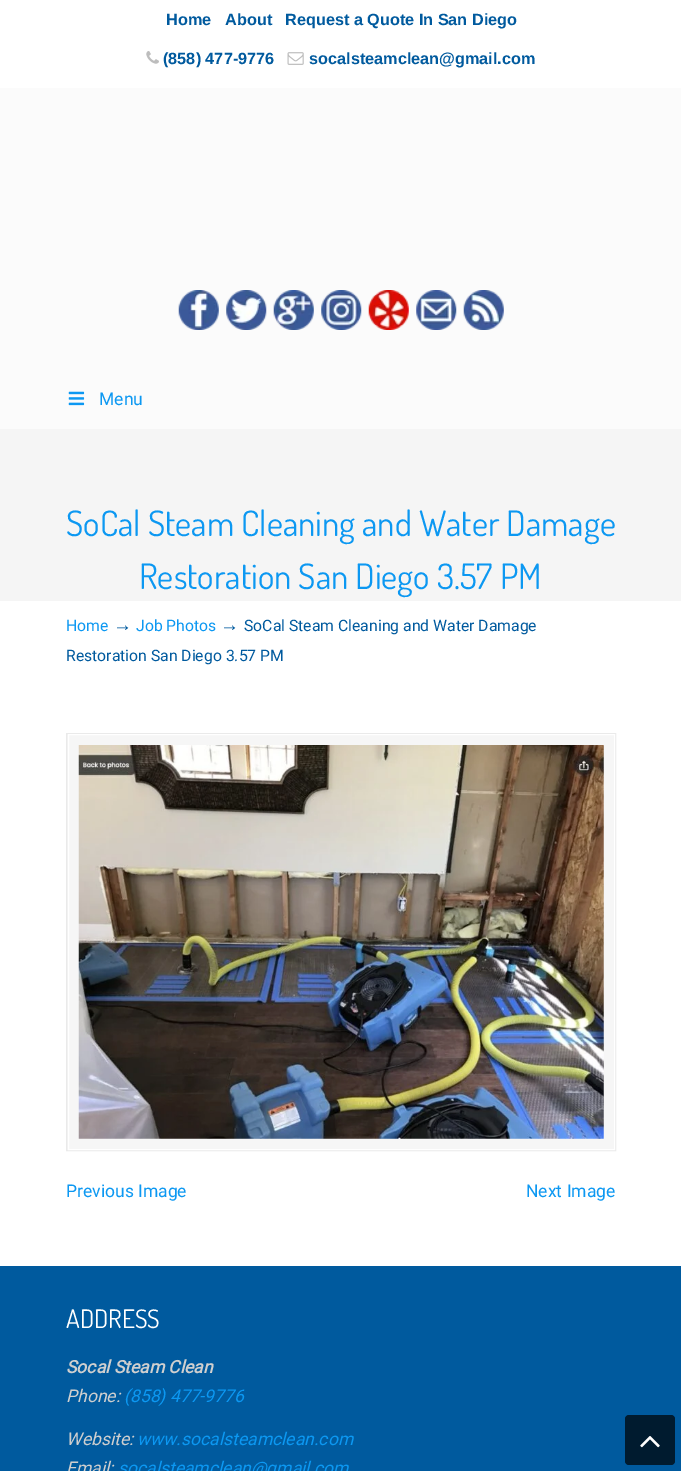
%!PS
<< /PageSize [681 1471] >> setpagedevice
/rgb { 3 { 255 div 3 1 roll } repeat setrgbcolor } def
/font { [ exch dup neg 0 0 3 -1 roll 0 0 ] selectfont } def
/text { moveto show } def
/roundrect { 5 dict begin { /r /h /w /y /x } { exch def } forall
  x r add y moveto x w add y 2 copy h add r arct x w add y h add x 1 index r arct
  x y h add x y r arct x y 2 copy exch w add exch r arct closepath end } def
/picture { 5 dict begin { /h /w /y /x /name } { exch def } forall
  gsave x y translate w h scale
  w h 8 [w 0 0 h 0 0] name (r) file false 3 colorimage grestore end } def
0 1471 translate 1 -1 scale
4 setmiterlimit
251 251 251 rgb
0 0 681 1471 rectfill
255 255 255 rgb
0 0 681 88 rectfill
(img_01.rgb) 146 51 13 13 picture
(img_02.rgb) 287 52 17 13 picture
(img_03.rgb) 178 290 41 40 picture
(img_04.rgb) 226 290 41 40 picture
(img_05.rgb) 273 290 41 40 picture
(img_06.rgb) 321 290 41 40 picture
(img_07.rgb) 368 290 41 40 picture
(img_08.rgb) 416 290 41 40 picture
(img_09.rgb) 463 290 41 40 picture
(img_10.rgb) 68 391 17 15 picture
245 245 245 rgb
0 429 681 172 rectfill
255 255 255 rgb
0 601 681 665 rectfill
246 246 246 rgb
67 734 547 416 rectfill
234 234 234 rgb
66.5 733.5 549 417 rectstroke
255 255 255 rgb
68.5 734.5 546 415 rectstroke
(img_11.rgb) 78 745 526 394 picture
0 90 158 rgb
0 1266 681 205 rectfill
0 27 47 rgb
625 1415 50 50 4 roundrect fill
(img_12.rgb) 640 1436 20 12 picture
/LiberationSans-Bold 16.25 font
0 90 158 rgb
(Home) 166 25 text
(About) 225 25 text
(Request a Quote In San Diego) 285 25 text
(\(858\) 477-9776) 163 64 text
(socalsteamclean@gmail.com) 309 64 text
/Roboto-Regular 17.5 font
12 152 242 rgb
(Menu) 99 405 text
/Dosis-Regular 35 font
(SoCal Steam Cleaning and Water Damage) 66 536 text
(Restoration San Diego 3.57 PM) 139 589 text
/Roboto-Regular 15.75 font
(Home) 66 631 text
/LiberationSerif-Regular 19 font
0 90 158 rgb
(→) 113 631 text
/Roboto-Regular 15.75 font
12 152 242 rgb
(Job Photos) 136 631 text
/LiberationSerif-Regular 19 font
0 90 158 rgb
(→) 220 631 text
/Roboto-Regular 15.75 font
(SoCal Steam Cleaning and Water Damage) 244 631 text
(Restoration San Diego 3.57 PM) 66 661 text
/Roboto-Regular 17.5 font
12 152 242 rgb
(Previous Image) 66 1197 text
(Next Image) 526 1197 text
/Dosis-Regular 25.5 font
255 255 255 rgb
(ADDRESS) 66 1328 text
/Roboto-BoldItalic 17.5 font
207 207 207 rgb
(Socal Steam Clean) 66 1373 text
/Roboto-Italic 17.5 font
(Phone:) 66 1402 text
12 152 242 rgb
(\(858\) 477-9776) 124 1402 text
207 207 207 rgb
(Website:) 66 1445 text
12 152 242 rgb
(www.socalsteamclean.com) 137 1445 text
207 207 207 rgb
(Email:) 66 1474 text
12 152 242 rgb
(socalsteamclean@gmail.com) 118 1474 text
showpage
